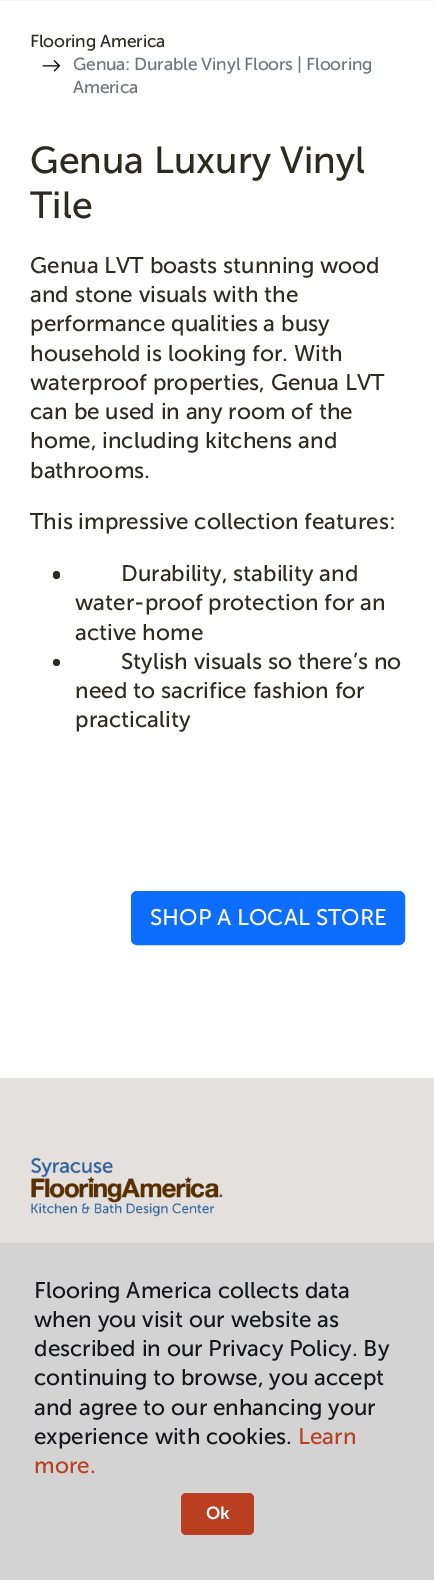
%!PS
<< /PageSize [434 1580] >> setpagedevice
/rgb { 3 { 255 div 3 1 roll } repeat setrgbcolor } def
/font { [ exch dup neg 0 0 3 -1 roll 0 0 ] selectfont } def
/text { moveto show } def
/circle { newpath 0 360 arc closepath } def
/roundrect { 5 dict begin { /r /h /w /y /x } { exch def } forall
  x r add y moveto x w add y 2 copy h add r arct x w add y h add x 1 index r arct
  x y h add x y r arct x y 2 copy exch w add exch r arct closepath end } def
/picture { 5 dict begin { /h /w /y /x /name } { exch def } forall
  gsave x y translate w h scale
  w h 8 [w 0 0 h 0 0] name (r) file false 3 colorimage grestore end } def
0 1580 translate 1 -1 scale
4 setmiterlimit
255 255 255 rgb
0 0 434 1580 rectfill
247 246 245 rgb
0 0 434 1 rectfill
(img_01.rgb) 42 60 18 12 picture
45 42 32 rgb
53 571 7 8 3.5 roundrect fill
56.5 662.5 3.5 circle fill
13 110 253 rgb
131.5 891.5 273 53 5.5 roundrect gsave fill grestore
stroke
227 224 221 rgb
0 1078 434 165 rectfill
(img_02.rgb) 31 1157 192 60 picture
211 211 212 rgb
0 1243 434 337 rectfill
185 63 32 rgb
181 1493 73 42 5 roundrect fill
/MuseoSans-Regular 17.5 font
45 42 32 rgb
30 47 moveto -0.2 0 (Flooring America) ashow
108 117 125 rgb
73 70 moveto -0.2 0 (Genua: Durable Vinyl Floors | Flooring) ashow
73 93 moveto -0.2 0 (America) ashow
/MuseoSans-Regular 37.5 font
45 42 32 rgb
(Genua Luxury Vinyl) 30 173 text
(Tile) 30 218 text
/MuseoSans-Regular 22.5 font
(Genua LVT boasts stunning wood) 30 273 text
(and stone visuals with the) 30 302 text
(performance qualities a busy) 30 331 text
(household is looking for. With) 30 361 text
(waterproof properties, Genua LVT) 30 390 text
(can be used in any room of the) 30 419 text
(home, including kitchens and) 30 448 text
(bathrooms.) 30 478 text
(This impressive collection features:) 30 529 text
(Durability, stability and) 121 581 text
(water-proof protection for an) 75 610 text
(active home) 75 640 text
(Stylish visuals so there’s no) 121 669 text
(need to sacrifice fashion for) 75 698 text
(practicality) 75 727 text
255 255 255 rgb
(SHOP A LOCAL STORE) 150 925 text
20 22 25 rgb
(Flooring America collects data) 34 1298 text
(when you visit our website as) 34 1327 text
(described in our Privacy Policy. By) 34 1356 text
(continuing to browse, you accept) 34 1385 text
(and agree to our enhancing your) 34 1415 text
(experience with cookies.) 34 1444 text
185 63 32 rgb
(Learn) 298 1444 text
(more.) 34 1473 text
/MuseoSans-SemiBold 17.5 font
255 255 255 rgb
206 1519 moveto -0.2 0 (Ok) ashow
showpage
